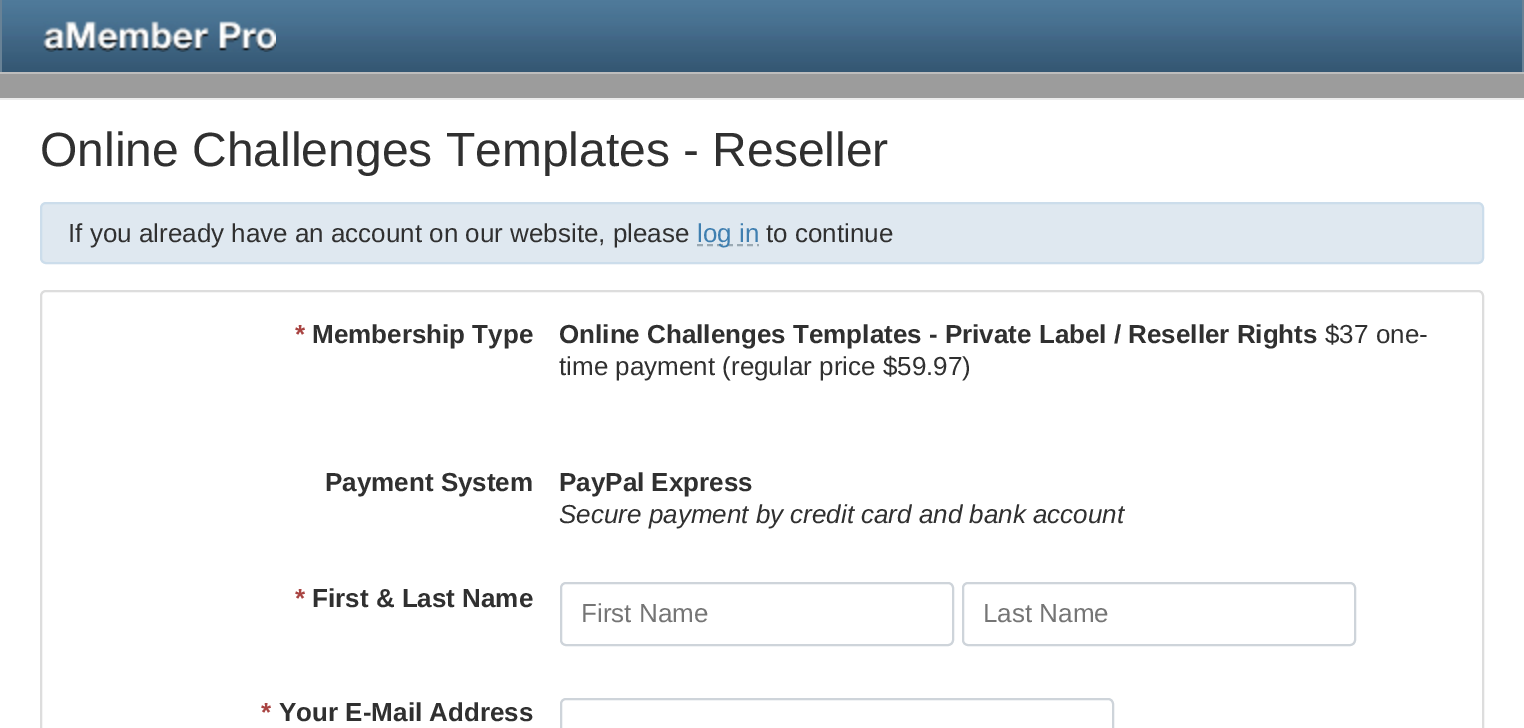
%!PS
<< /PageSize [1524 728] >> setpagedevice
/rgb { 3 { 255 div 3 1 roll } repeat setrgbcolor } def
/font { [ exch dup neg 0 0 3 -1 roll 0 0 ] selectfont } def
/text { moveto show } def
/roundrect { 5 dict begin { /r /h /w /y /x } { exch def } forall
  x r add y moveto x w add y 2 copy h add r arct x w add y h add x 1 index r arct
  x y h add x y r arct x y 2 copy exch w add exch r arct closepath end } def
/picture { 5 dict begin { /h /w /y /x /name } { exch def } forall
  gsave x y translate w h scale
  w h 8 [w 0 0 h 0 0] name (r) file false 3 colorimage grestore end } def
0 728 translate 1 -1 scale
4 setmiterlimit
255 255 255 rgb
0 0 1524 728 rectfill
(img_01.rgb) 2 0 1520 72 picture
104 130 150 rgb
1522 0 2 72 rectfill
0 0 2 72 rectfill
(img_02.rgb) 43 21 233 31 picture
156 156 156 rgb
0 74 1524 24 rectfill
189 189 189 rgb
0 72 1524 2 rectfill
235 235 235 rgb
0 98 1524 2 rectfill
223 232 240 rgb
41 203 1442 60 5 roundrect gsave fill grestore
204 221 235 rgb
2 setlinewidth
stroke
154 169 179 rgb
[6 4] 0 setdash
697 245 moveto 62 0 rlineto stroke
221 221 221 rgb
[] 0 setdash
41 291 1442 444 5 roundrect stroke
206 212 218 rgb
561 583 392 62 5 roundrect stroke
963 583 392 62 5 roundrect stroke
561 699 552 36 5 roundrect stroke
/LiberationSans-Regular 48 font
48 48 48 rgb
(Online Challenges Templates - Reseller) 40 166 text
/LiberationSans-Regular 26 font
(If you already have an account on our website, please) 68 242 text
63 127 176 rgb
(log in) 697 242 text
48 48 48 rgb
(to continue) 766 242 text
/LiberationSans-Bold 26 font
169 68 66 rgb
(*) 295 343 text
48 48 48 rgb
(Membership Type) 312 343 text
(Online Challenges Templates - Private Label / Reseller Rights) 559 343 text
/LiberationSans-Regular 26 font
($37 one-) 1325 343 text
(time payment \(regular price $59.97\)) 559 375 text
/LiberationSans-Bold 26 font
(Payment System) 325 491 text
(PayPal Express) 559 491 text
/LiberationSans-Italic 26 font
(Secure payment by credit card and bank account) 559 523 text
/LiberationSans-Bold 26 font
169 68 66 rgb
(*) 295 607 text
48 48 48 rgb
(First & Last Name) 312 607 text
/LiberationSans-Regular 26 font
117 117 117 rgb
(First Name) 581 622 text
(Last Name) 983 622 text
/LiberationSans-Bold 26 font
169 68 66 rgb
(*) 261 721 text
48 48 48 rgb
(Your E-Mail Address) 279 721 text
showpage
